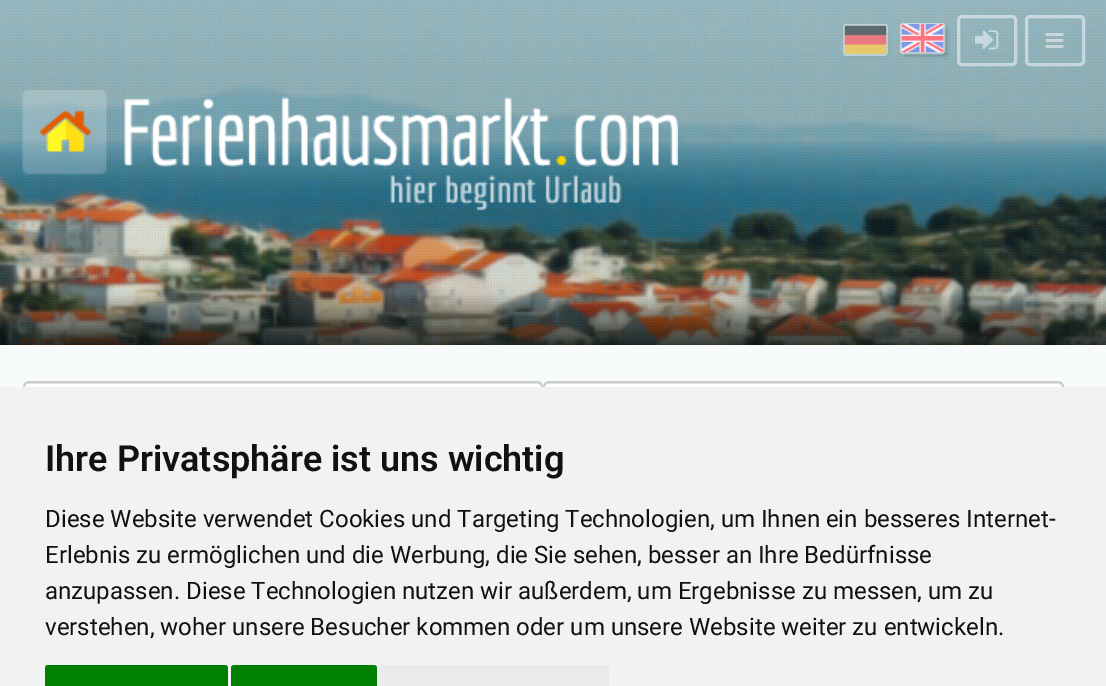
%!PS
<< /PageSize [1106 686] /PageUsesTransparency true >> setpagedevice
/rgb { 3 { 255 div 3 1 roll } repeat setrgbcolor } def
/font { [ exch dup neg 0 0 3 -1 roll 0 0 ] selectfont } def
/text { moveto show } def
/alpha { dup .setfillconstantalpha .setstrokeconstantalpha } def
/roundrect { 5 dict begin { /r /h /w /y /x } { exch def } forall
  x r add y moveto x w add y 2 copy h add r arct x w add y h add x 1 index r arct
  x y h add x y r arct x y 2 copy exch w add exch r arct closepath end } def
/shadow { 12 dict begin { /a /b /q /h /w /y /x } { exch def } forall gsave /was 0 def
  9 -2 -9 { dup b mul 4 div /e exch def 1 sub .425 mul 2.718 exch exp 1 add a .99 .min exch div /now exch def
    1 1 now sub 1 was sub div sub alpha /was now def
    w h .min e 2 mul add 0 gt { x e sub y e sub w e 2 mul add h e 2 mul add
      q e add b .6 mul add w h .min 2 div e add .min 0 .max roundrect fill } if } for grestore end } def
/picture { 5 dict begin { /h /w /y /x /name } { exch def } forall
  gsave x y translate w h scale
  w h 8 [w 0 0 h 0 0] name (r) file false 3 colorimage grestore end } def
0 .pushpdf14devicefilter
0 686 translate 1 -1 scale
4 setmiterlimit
255 255 255 rgb
0 0 1106 686 rectfill
(img_01.rgb) 0 0 1106 345 picture
(img_02.rgb) 0 0 1106 345 picture
gsave
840 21 moveto 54 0 rlineto 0 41 rlineto -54 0 rlineto closepath 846 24 moveto 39 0 rlineto 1.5 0 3 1.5 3 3 rcurveto 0 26 rlineto 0 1.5 -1.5 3 -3 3 rcurveto -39 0 rlineto -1.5 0 -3 -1.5 -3 -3 rcurveto 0 -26 rlineto 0 -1.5 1.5 -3 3 -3 rcurveto closepath eoclip newpath
0 0 0 rgb
846 27 42 29 1.5 1.5 0.16 shadow
grestore
0.4 alpha
2 setlinewidth
844 25 43 30 2 roundrect stroke
1 alpha
(img_03.rgb) 844 25 43 29 picture
0 0 0 rgb
905 27 42 29 1.5 2 0.2 shadow
0.5 alpha
255 255 255 rgb
901 24 43 29 2 roundrect stroke
1 alpha
(img_04.rgb) 901 24 43 29 picture
0.5 alpha
3 setlinewidth
958.5 16.5 57 48 3.5 roundrect stroke
1 alpha
(img_05.rgb) 975 30 24 20 picture
0.5 alpha
1026.5 16.5 57 48 3.5 roundrect stroke
1 alpha
(img_06.rgb) 1045 33 19 15 picture
(img_07.rgb) 22 90 656 120 picture
248 251 252 rgb
0 345 1106 42 rectfill
255 255 255 rgb
23 381 520 51 6 roundrect fill
236 236 236 rgb
28 384 moveto 509 0 rlineto 2 0 5 2 5 4 rcurveto 0 -3 -2 -5 -5 -5 rcurveto -508 0 rlineto -3 0 -5 2 -5 5 rcurveto 0 -2 2 -4 4 -4 rcurveto closepath fill
204 204 204 rgb
2 setlinewidth
24 382 518 49 5 roundrect stroke
255 255 255 rgb
543 381 521 51 6 roundrect fill
236 236 236 rgb
549 384 moveto 509 0 rlineto 2 0 4 2 4 4 rcurveto 0 -3 -2 -5 -5 -5 rcurveto -507 0 rlineto -2 0 -3 1 -4 2 rcurveto closepath fill
204 204 204 rgb
544 382 519 49 5 roundrect stroke
242 242 242 rgb
0 387 1106 299 rectfill
0 128 0 rgb
48 665 moveto 177 0 rlineto 1.5 0 3 1.5 3 3 rcurveto 0 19 rlineto -183 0 rlineto 0 -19 rlineto 0 -1.5 1.5 -3 3 -3 rcurveto closepath fill
234 665 moveto 140 0 rlineto 1.5 0 3 1.5 3 3 rcurveto 0 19 rlineto -146 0 rlineto 0 -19 rlineto 0 -1.5 1.5 -3 3 -3 rcurveto closepath fill
234 234 234 rgb
383 665 moveto 223 0 rlineto 1.5 0 3 1.5 3 3 rcurveto 0 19 rlineto -229 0 rlineto 0 -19 rlineto 0 -1.5 1.5 -3 3 -3 rcurveto closepath fill
/Roboto-SemiBold 36 font
17 17 17 rgb
(Ihre Privatsphäre ist uns wichtig) 45 471 text
/Roboto-Regular 24 font
(Diese Website verwendet Cookies und Targeting Technologien, um Ihnen ein besseres Internet-) 45 527 text
(Erlebnis zu ermöglichen und die Werbung, die Sie sehen, besser an Ihre Bedürfnisse) 45 563 text
(anzupassen. Diese Technologien nutzen wir außerdem, um Ergebnisse zu messen, um zu) 45 599 text
(verstehen, woher unsere Besucher kommen oder um unsere Website weiter zu entwickeln.) 45 635 text
.poppdf14devicefilter showpage
